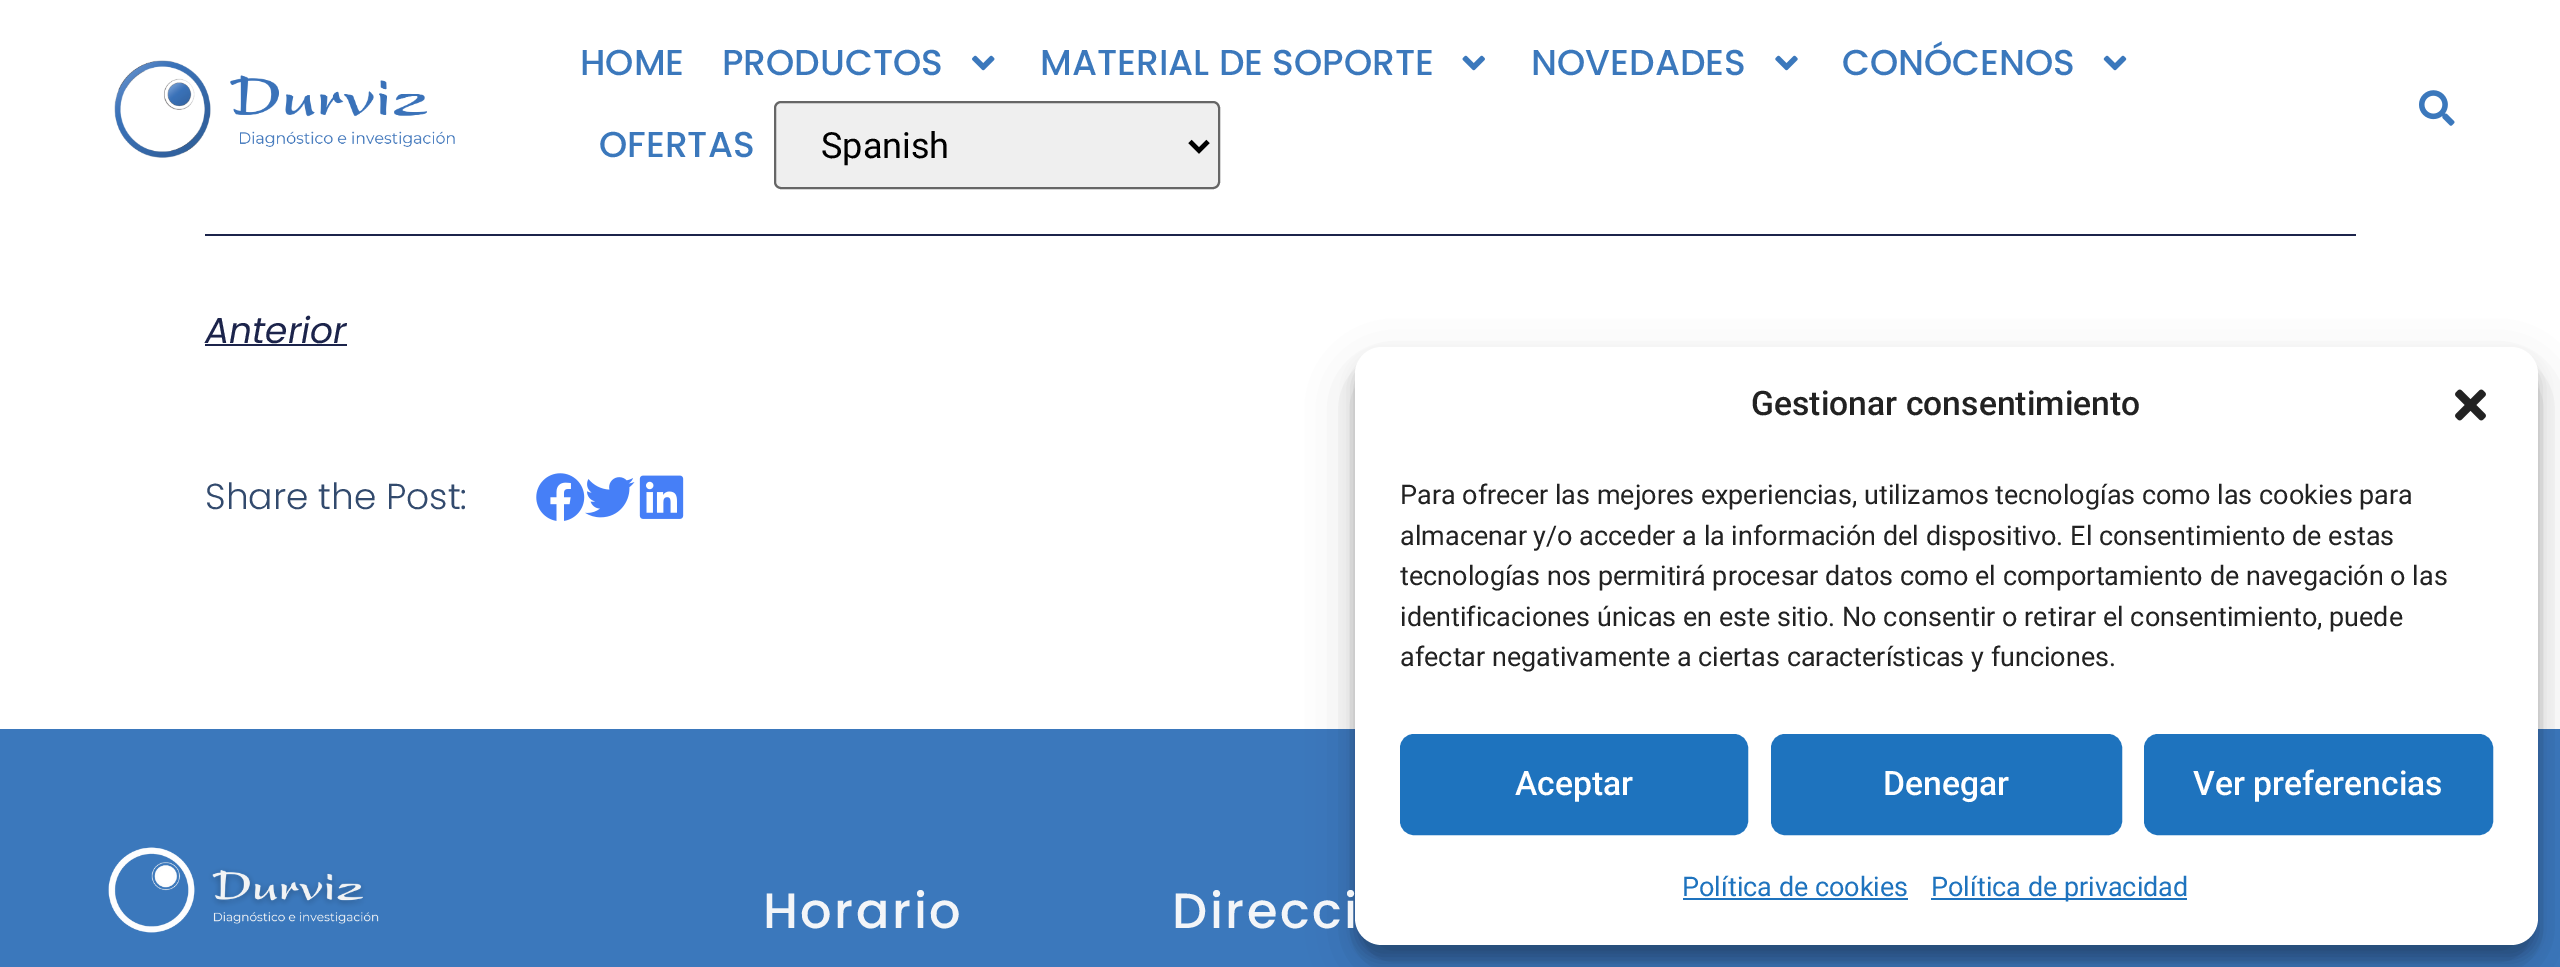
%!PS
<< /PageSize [2560 967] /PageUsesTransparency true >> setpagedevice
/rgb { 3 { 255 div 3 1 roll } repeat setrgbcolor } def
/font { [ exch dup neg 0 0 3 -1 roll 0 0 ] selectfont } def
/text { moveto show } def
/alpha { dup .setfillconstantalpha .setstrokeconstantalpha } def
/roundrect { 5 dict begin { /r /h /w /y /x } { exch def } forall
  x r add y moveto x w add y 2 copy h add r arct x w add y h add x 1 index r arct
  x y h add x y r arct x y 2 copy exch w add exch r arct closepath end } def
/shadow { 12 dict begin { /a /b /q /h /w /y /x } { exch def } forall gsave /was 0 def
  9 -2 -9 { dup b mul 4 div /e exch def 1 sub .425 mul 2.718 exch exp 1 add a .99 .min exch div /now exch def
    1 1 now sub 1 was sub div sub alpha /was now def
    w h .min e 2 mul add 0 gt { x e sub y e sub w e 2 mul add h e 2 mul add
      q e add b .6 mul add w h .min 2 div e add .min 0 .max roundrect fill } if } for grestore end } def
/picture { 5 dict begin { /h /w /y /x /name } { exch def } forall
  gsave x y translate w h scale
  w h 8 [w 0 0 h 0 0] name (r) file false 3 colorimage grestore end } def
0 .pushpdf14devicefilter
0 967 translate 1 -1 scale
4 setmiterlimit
255 255 255 rgb
0 0 2560 967 rectfill
(img_01.rgb) 114 60 341 98 picture
(img_02.rgb) 972 55 23 16 picture
(img_03.rgb) 1462 55 23 16 picture
(img_04.rgb) 1775 55 23 16 picture
(img_05.rgb) 2103 55 24 16 picture
239 239 239 rgb
775 102 444 86 6 roundrect gsave fill grestore
102 102 102 rgb
2 setlinewidth
stroke
0 0 0 rgb
4.5 setlinewidth
1190 141.5 moveto 9 9 rlineto 9 -9 rlineto stroke
(img_06.rgb) 2419 90 36 36 picture
28 36 75 rgb
205 234 2151 2 rectfill
205 344 142 2 rectfill
(img_07.rgb) 536 473 49 48 picture
(img_08.rgb) 585 477 50 41 picture
(img_09.rgb) 639 475 45 44 picture
59 120 188 rgb
0 729 2560 238 rectfill
0 0 0 rgb
1355 360 1183 599 27 7 0.23 shadow
1355 369 1183 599 27 22.5 0.19 shadow
255 255 255 rgb
1355 347 1183 598 27 roundrect fill
(img_10.rgb) 2455 389 31 32 picture
30 115 190 rgb
1401 735 346 99 13 roundrect gsave fill grestore
2 setlinewidth
stroke
1772 735 349 99 13 roundrect gsave fill grestore
stroke
2145 735 347 99 13 roundrect gsave fill grestore
stroke
1683 898 225 2 rectfill
1931 898 256 2 rectfill
(img_11.rgb) 108 847 271 86 picture
/Poppins-Medium 36 font
59 120 188 rgb
(HOME) 580 75 text
(PRODUCTOS) 722 75 text
(MATERIAL DE SOPORTE) 1040 75 text
(NOVEDADES) 1531 75 text
(CONÓCENOS) 1842 75 text
(OFERTAS) 599 157 text
/Roboto-Regular 36 font
0 0 0 rgb
(Spanish) 821 158 text
/Poppins-Italic 36 font
28 36 75 rgb
(Anterior) 205 343 text
/Poppins-Light 36 font
50 74 109 rgb
(Share the Post:) 205 509 text
/Roboto-Medium 33.75 font
34 34 34 rgb
(Gestionar consentimiento) 1751 415 text
/Roboto-Regular 27 font
(Para ofrecer las mejores experiencias, utilizamos tecnologías como las cookies para) 1400 504 text
(almacenar y/o acceder a la información del dispositivo. El consentimiento de estas) 1400 545 text
gsave
1400 475 1093 214 rectclip
(tecnologías nos permitirá procesar datos como el comportamiento de navegación o las) 1400 585 text
grestore
(identificaciones únicas en este sitio. No consentir o retirar el consentimiento, puede) 1400 626 text
(afectar negativamente a ciertas características y funciones.) 1400 666 text
/Roboto-Medium 33.75 font
255 255 255 rgb
(Aceptar) 1515 795 text
(Denegar) 1883 795 text
(Ver preferencias) 2193 795 text
/Roboto-Regular 27 font
30 115 190 rgb
(Política de cookies) 1682 896 text
(Política de privacidad) 1931 896 text
/Poppins-Medium 49.5 font
243 245 248 rgb
763 928 moveto 2.5 0 (Horario) ashow
1172 928 moveto 2.5 0 (Direcci) ashow
.poppdf14devicefilter showpage
